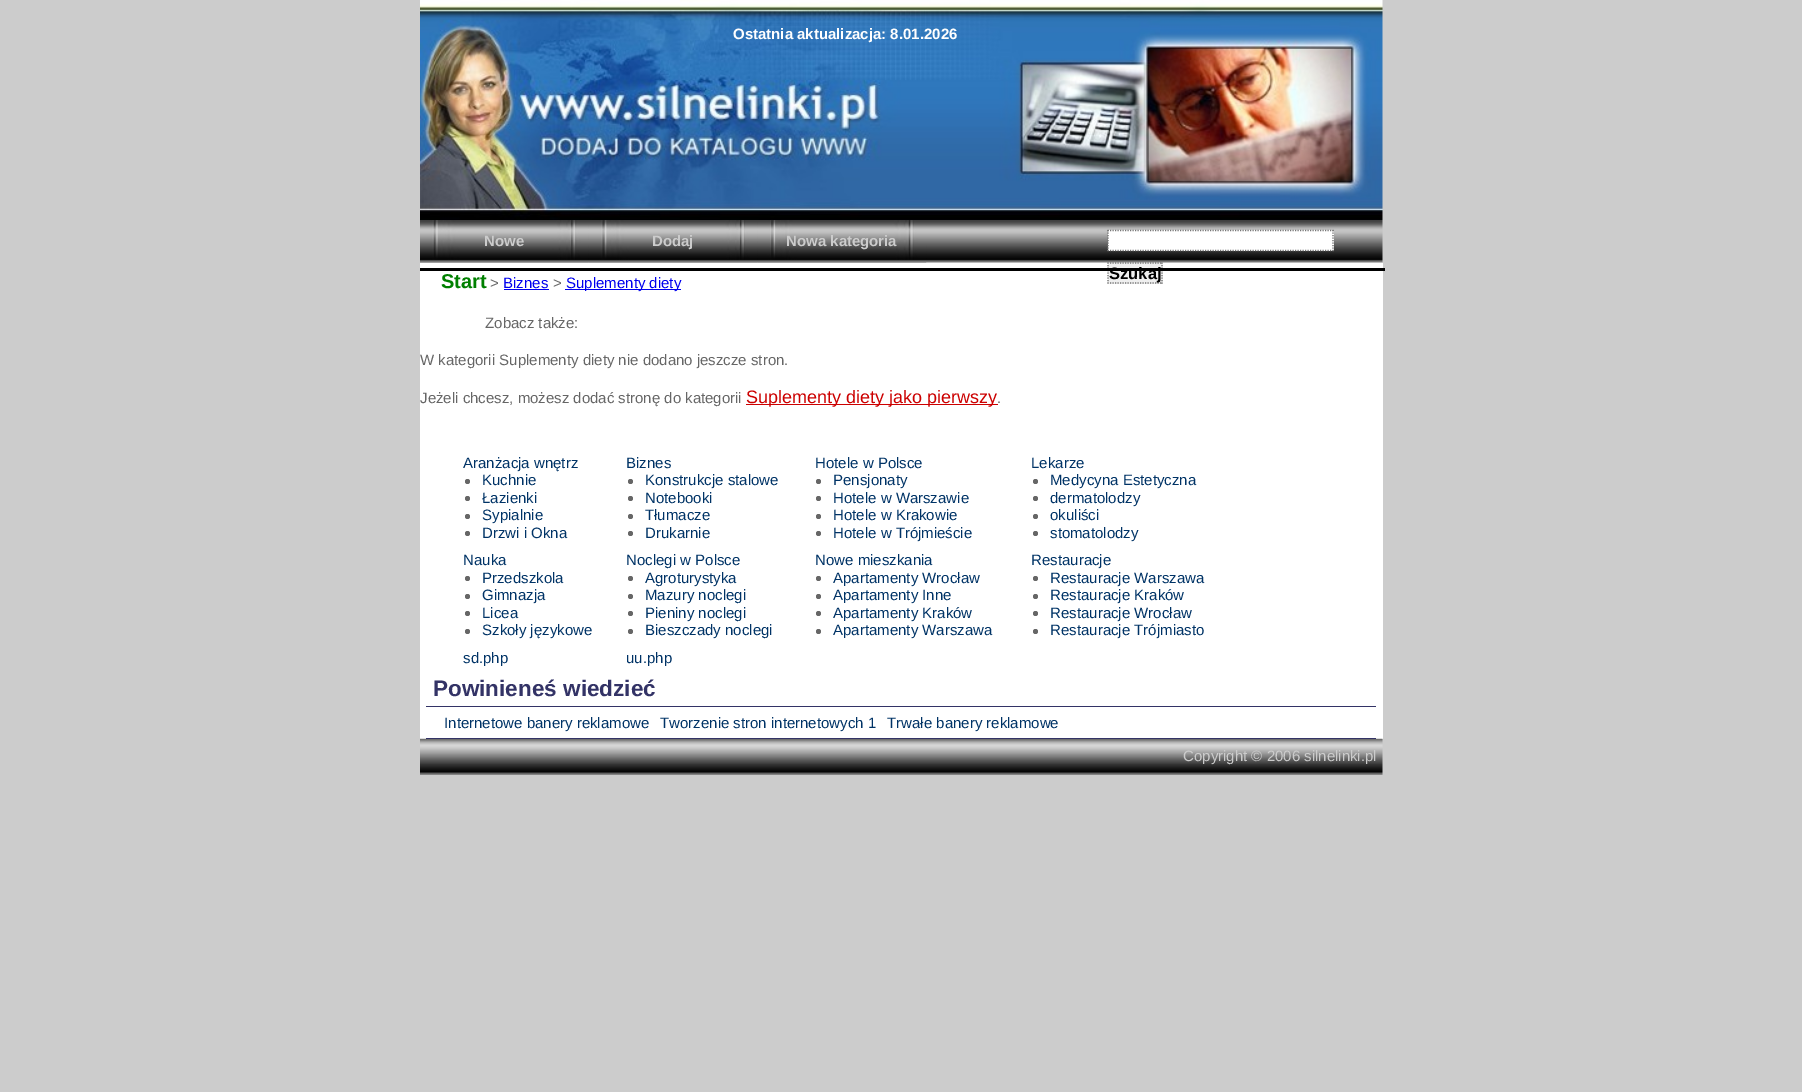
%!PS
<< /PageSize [1802 1092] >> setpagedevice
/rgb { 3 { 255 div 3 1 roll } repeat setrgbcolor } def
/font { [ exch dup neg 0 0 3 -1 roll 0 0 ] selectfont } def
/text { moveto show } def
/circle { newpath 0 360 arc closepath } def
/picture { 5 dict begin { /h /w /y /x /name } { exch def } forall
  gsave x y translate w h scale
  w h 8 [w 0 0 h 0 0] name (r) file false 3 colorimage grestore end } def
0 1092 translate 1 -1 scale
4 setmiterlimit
204 204 204 rgb
0 0 1802 1092 rectfill
(img_01.rgb) 420 0 963 220 picture
(img_02.rgb) 420 220 963 43 picture
(img_03.rgb) 420 220 169 43 picture
(img_04.rgb) 588 220 170 43 picture
(img_05.rgb) 757 220 170 43 picture
255 255 255 rgb
1108 230 226 21 rectfill
117 117 117 rgb
1.2 setlinewidth
[1.25 1.25] 0 setdash
1107.5 230.5 moveto 226.5 0 rlineto stroke
1333 230 moveto 0 21 rlineto stroke
1107.5 250.5 moveto 226.5 0 rlineto stroke
1108 230 moveto 0 21 rlineto stroke
255 255 255 rgb
420 263 963 476 rectfill
239 239 239 rgb
1108 263 55 21 rectfill
117 117 117 rgb
1107.5 263 moveto 55 0 rlineto 1162 262.5 moveto 0 21.5 rlineto 1107.5 283 moveto 55 0 rlineto 1108 262.5 moveto 0 21.5 rlineto stroke
0 0 0 rgb
420 268 965 3 rectfill
0 0 238 rgb
504 289 45 1 rectfill
565 289 116 1 rectfill
204 0 0 rgb
746 404 252 1 rectfill
102 102 102 rgb
467.5 481.5 2.5 circle fill
467.5 498.5 2.5 circle fill
467.5 516.5 2.5 circle fill
467.5 533.5 2.5 circle fill
630.5 481.5 2.5 circle fill
630.5 498.5 2.5 circle fill
630.5 516.5 2.5 circle fill
630.5 533.5 2.5 circle fill
818.5 481.5 2.5 circle fill
818.5 498.5 2.5 circle fill
818.5 516.5 2.5 circle fill
818.5 533.5 2.5 circle fill
1035.5 481.5 2.5 circle fill
1035.5 498.5 2.5 circle fill
1035.5 516.5 2.5 circle fill
1035.5 533.5 2.5 circle fill
467.5 578.5 2.5 circle fill
467.5 596.5 2.5 circle fill
467.5 613.5 2.5 circle fill
467.5 631.5 2.5 circle fill
630.5 578.5 2.5 circle fill
630.5 596.5 2.5 circle fill
630.5 613.5 2.5 circle fill
630.5 631.5 2.5 circle fill
818.5 578.5 2.5 circle fill
818.5 596.5 2.5 circle fill
818.5 613.5 2.5 circle fill
818.5 631.5 2.5 circle fill
1035.5 578.5 2.5 circle fill
1035.5 596.5 2.5 circle fill
1035.5 613.5 2.5 circle fill
1035.5 631.5 2.5 circle fill
51 51 102 rgb
426 706 950 1 rectfill
(img_06.rgb) 420 738 963 37 picture
426 738 950 1 rectfill
/LiberationSans-Bold 15 font
255 255 255 rgb
(Ostatnia aktualizacja: 8.01.2026) 733 39 text
204 204 204 rgb
(Nowe) 484 246 text
(Dodaj) 652 246 text
(Nowa kategoria) 786 246 text
/LiberationSans-Bold 16.5 font
0 0 0 rgb
(Szukaj) 1109 279 text
/LiberationSans-Bold 20 font
0 128 0 rgb
(Start) 441 288 text
/LiberationSans-Regular 15 font
102 102 102 rgb
(>) 490 288 text
0 0 238 rgb
(Biznes) 503 288 text
102 102 102 rgb
(>) 553 288 text
0 0 238 rgb
(Suplementy diety) 566 288 text
102 102 102 rgb
(Zobacz także:) 485 328 text
(W kategorii Suplementy diety nie dodano jeszcze stron.) 420 365 text
(Jeżeli chcesz, możesz dodać stronę do kategorii) 420 403 text
/LiberationSans-Regular 18 font
204 0 0 rgb
(Suplementy diety jako pierwszy) 746 403 text
/LiberationSans-Regular 15 font
102 102 102 rgb
(.) 997 403 text
0 51 102 rgb
(Aranżacja wnętrz) 463 468 text
(Kuchnie) 482 485 text
(Łazienki) 482 503 text
(Sypialnie) 482 520 text
(Drzwi i Okna) 482 538 text
(Biznes) 626 468 text
(Konstrukcje stalowe) 645 485 text
(Notebooki) 645 503 text
(Tłumacze) 645 520 text
(Drukarnie) 645 538 text
(Hotele w Polsce) 815 468 text
(Pensjonaty) 833 485 text
(Hotele w Warszawie) 833 503 text
(Hotele w Krakowie) 833 520 text
(Hotele w Trójmieście) 833 538 text
(Lekarze) 1031 468 text
(Medycyna Estetyczna) 1050 485 text
(dermatolodzy) 1050 503 text
(okuliści) 1050 520 text
(stomatolodzy) 1050 538 text
(Nauka) 463 565 text
(Przedszkola) 482 583 text
(Gimnazja) 482 600 text
(Licea) 482 618 text
(Szkoły językowe) 482 635 text
(Noclegi w Polsce) 626 565 text
(Agroturystyka) 645 583 text
(Mazury noclegi) 645 600 text
(Pieniny noclegi) 645 618 text
(Bieszczady noclegi) 645 635 text
(Nowe mieszkania) 815 565 text
(Apartamenty Wrocław) 833 583 text
(Apartamenty Inne) 833 600 text
(Apartamenty Kraków) 833 618 text
(Apartamenty Warszawa) 833 635 text
(Restauracje) 1031 565 text
(Restauracje Warszawa) 1050 583 text
(Restauracje Kraków) 1050 600 text
(Restauracje Wrocław) 1050 618 text
(Restauracje Trójmiasto) 1050 635 text
(sd.php) 463 663 text
(uu.php) 626 663 text
/LiberationSans-Bold 22.5 font
51 51 102 rgb
(Powinieneś wiedzieć) 433 696 text
/LiberationSans-Regular 15 font
0 51 102 rgb
(Internetowe banery reklamowe) 444 728 text
(Tworzenie stron internetowych 1) 660 728 text
(Trwałe banery reklamowe) 887 728 text
204 204 204 rgb
(Copyright © 2006 silnelinki.pl) 1183 761 text
showpage
